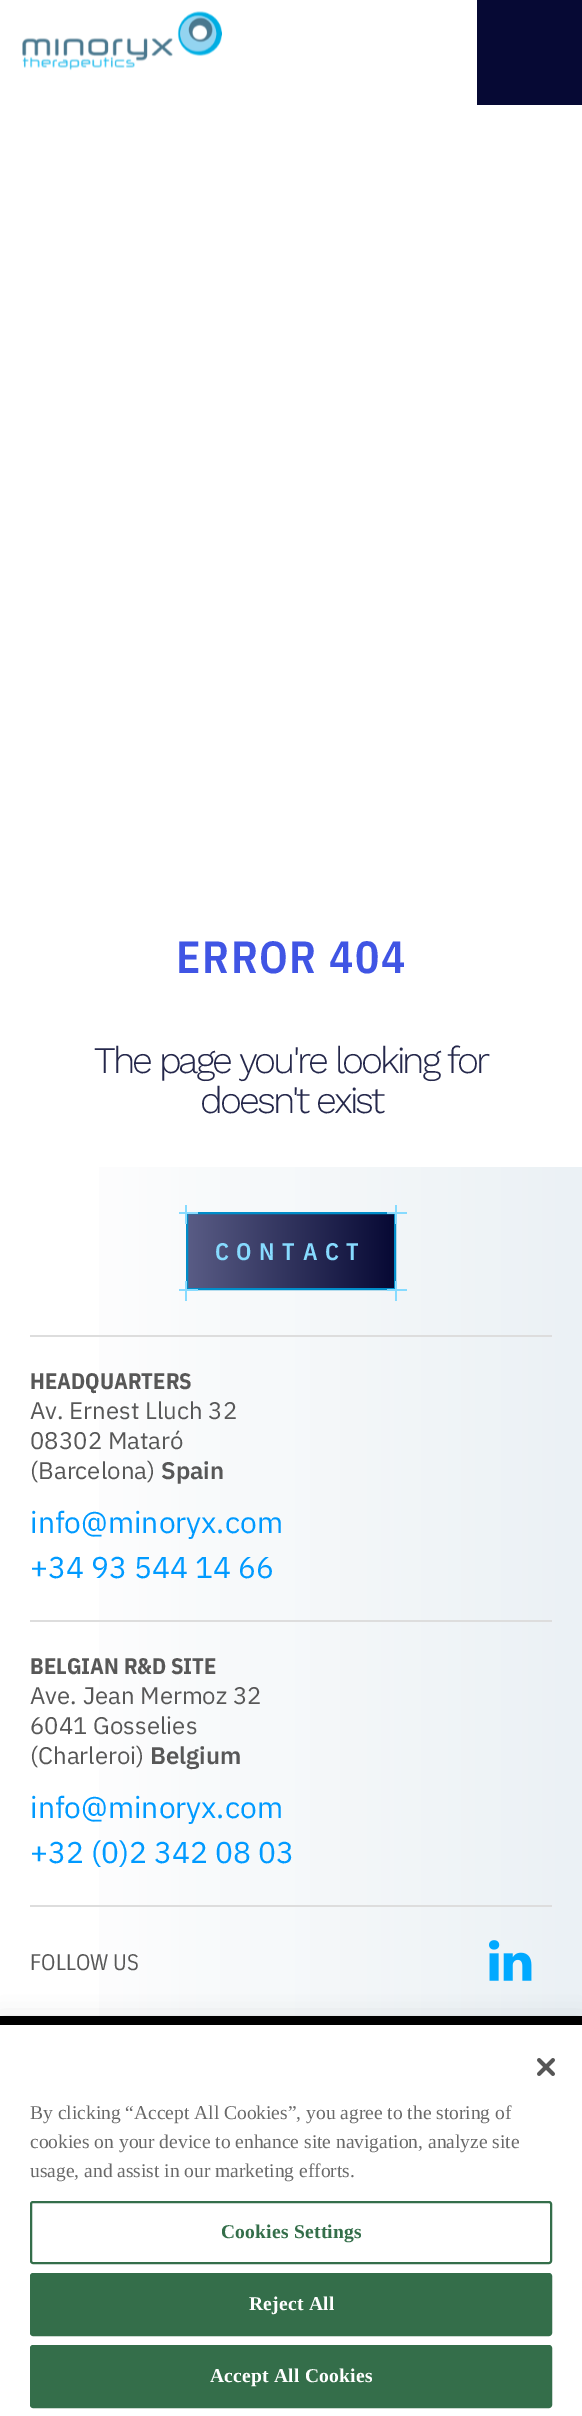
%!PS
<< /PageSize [582 2416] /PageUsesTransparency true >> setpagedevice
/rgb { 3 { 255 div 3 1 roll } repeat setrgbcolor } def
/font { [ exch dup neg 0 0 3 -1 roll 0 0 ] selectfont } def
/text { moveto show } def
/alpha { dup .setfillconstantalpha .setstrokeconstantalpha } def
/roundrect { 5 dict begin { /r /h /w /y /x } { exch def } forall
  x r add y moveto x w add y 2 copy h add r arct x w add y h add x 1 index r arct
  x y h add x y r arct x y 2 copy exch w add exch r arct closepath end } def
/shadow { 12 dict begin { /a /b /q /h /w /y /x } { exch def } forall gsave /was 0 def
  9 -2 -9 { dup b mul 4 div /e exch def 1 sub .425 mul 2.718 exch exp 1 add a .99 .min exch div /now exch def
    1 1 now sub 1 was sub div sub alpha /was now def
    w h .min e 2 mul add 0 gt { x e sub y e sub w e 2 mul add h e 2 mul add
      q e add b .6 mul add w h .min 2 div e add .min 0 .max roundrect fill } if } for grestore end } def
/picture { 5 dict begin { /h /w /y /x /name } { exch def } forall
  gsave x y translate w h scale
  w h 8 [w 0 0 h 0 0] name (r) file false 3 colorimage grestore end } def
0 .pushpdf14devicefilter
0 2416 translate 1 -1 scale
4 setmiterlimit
255 255 255 rgb
0 0 582 2416 rectfill
(img_01.rgb) 22 11 200 60 picture
6 9 52 rgb
477 0 105 105 rectfill
gsave 99 1167 moveto 483 0 rlineto 0 849 rlineto -483 0 rlineto closepath clip newpath
<< /ShadingType 2 /ColorSpace /DeviceRGB /Coords [30 1592 582 1592] /Extend [true true] /Function << /FunctionType 3 /Domain [0 1] /Functions [<< /FunctionType 2 /Domain [0 1] /C0 [1 1 1] /C1 [0.961 0.973 0.98] /N 1 >> << /FunctionType 2 /Domain [0 1] /C0 [0.961 0.973 0.98] /C1 [0.922 0.945 0.961] /N 1 >>] /Bounds [0.5] /Encode [0 1 0 1] >> >> shfill grestore
gsave 188 1214 moveto 206 0 rlineto 0 74 rlineto -206 0 rlineto closepath clip newpath
<< /ShadingType 2 /ColorSpace /DeviceRGB /Coords [188 1251 395 1251] /Extend [true true] /Function << /FunctionType 2 /Domain [0 1] /C0 [0.349 0.361 0.522] /C1 [0.024 0.035 0.204] /N 1 >> >> shfill grestore
0 141 201 rgb
2 setlinewidth
187 1213 208 76 rectstroke
135 219 255 rgb
185 1205 2 19 rectfill
179 1212 19 2 rectfill
395 1205 2 19 rectfill
387 1212 20 2 rectfill
185 1281 2 20 rectfill
179 1289 19 2 rectfill
395 1281 2 20 rectfill
387 1289 20 2 rectfill
221 221 221 rgb
30 1335 522 2 rectfill
30 1620 522 2 rectfill
30 1905 522 2 rectfill
(img_02.rgb) 489 1940 43 41 picture
0 0 0 rgb
0 2016 582 9 rectfill
0 2025 582 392 0 13.5 0.2 shadow
255 255 255 rgb
0 2025 582 391 rectfill
(img_03.rgb) 537 2058 18 18 picture
52 110 74 rgb
31 2202 520 61 2 roundrect stroke
31 2274 520 61 2 roundrect gsave fill grestore
stroke
31 2346 520 61 2 roundrect gsave fill grestore
stroke
/IBMPlexSansCondensed-SemiBold 45 font
64 85 228 rgb
176 973 moveto 1.5 0 (ERROR 404) ashow
/WorkSans-Light 37.5 font
37 40 75 rgb
94 1073 moveto -3 0 (The page you're looking for) ashow
200 1113 moveto -3 0 (doesn't exist) ashow
/IBMPlexSansCondensed-SemiBold 24 font
135 219 255 rgb
215 1260 moveto 7.5 0 (CONTACT) ashow
/IBMPlexSansCondensed-Bold 22.5 font
87 87 87 rgb
(HEADQUARTERS) 30 1389 text
/IBMPlexSans-Regular 24 font
(Av. Ernest Lluch 32) 30 1419 text
(08302 Mataró) 30 1449 text
(\(Barcelona\)) 30 1479 text
/IBMPlexSans-SemiBold 24 font
(Spain) 161 1479 text
/IBMPlexSans-Regular 30 font
0 154 255 rgb
(info@minoryx.com) 30 1533 text
(+34 93 544 14 66) 30 1578 text
/IBMPlexSansCondensed-Bold 22.5 font
87 87 87 rgb
(BELGIAN R&D SITE) 30 1674 text
/IBMPlexSans-Regular 24 font
(Ave. Jean Mermoz 32) 30 1704 text
(6041 Gosselies) 30 1734 text
(\(Charleroi\)) 30 1764 text
/IBMPlexSans-SemiBold 24 font
(Belgium) 150 1764 text
/IBMPlexSans-Regular 30 font
0 154 255 rgb
(info@minoryx.com) 30 1818 text
(+32 \(0\)2 342 08 03) 30 1863 text
/IBMPlexSansCondensed-Regular 22.5 font
87 87 87 rgb
(FOLLOW US) 30 1970 text
/LiberationSerif-Regular 19.5 font
105 105 105 rgb
(By clicking “Accept All Cookies”, you agree to the storing of) 30 2119 text
(cookies on your device to enhance site navigation, analyze site) 30 2148 text
(usage, and assist in our marketing efforts.) 30 2177 text
/LiberationSerif-Bold 19.5 font
52 110 74 rgb
221 2238 moveto 0.25 0 (Cookies Settings) ashow
255 255 255 rgb
249 2310 moveto 0.25 0 (Reject All) ashow
210 2382 moveto 0.25 0 (Accept All Cookies) ashow
.poppdf14devicefilter showpage
